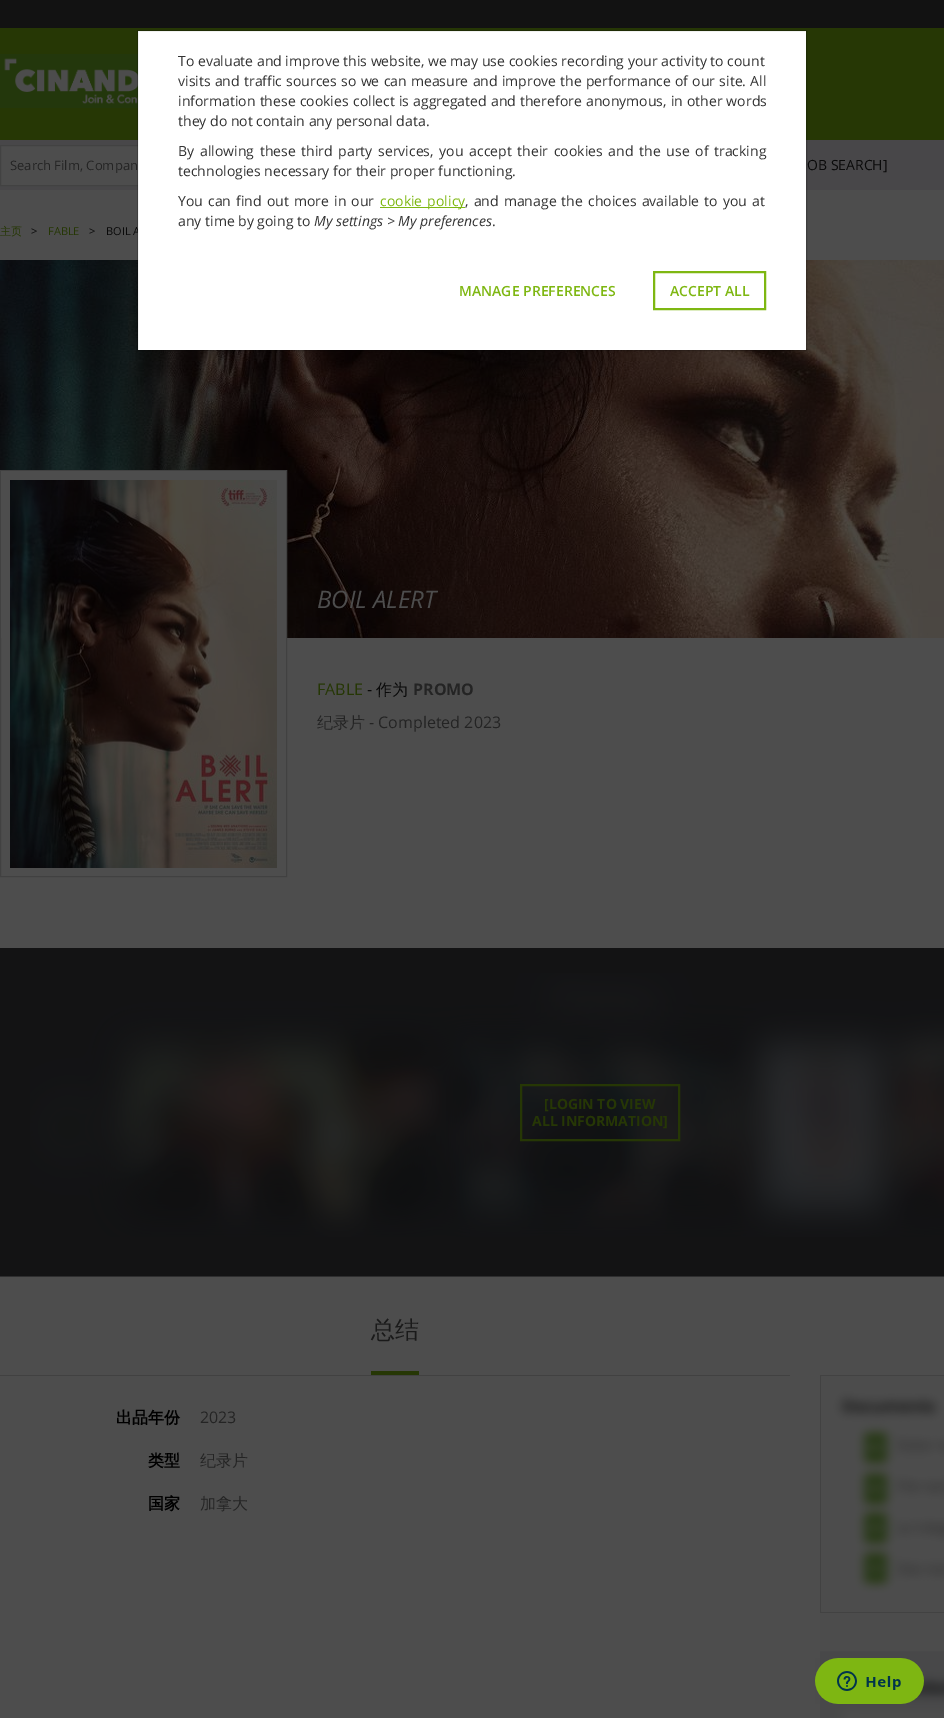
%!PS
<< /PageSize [944 1718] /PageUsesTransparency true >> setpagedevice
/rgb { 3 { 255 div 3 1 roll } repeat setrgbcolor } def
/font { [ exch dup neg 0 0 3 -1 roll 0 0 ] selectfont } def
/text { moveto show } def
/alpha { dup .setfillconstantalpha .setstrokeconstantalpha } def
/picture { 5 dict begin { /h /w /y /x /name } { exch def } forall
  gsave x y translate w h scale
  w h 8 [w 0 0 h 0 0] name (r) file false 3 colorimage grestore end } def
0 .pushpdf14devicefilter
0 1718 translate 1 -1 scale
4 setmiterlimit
77 77 77 rgb
0 0 944 1718 rectfill
18 18 18 rgb
0 0 944 28 rectfill
38 55 5 rgb
0 28 944 112 rectfill
(img_01.rgb) 0 54 138 54 picture
72 71 73 rgb
0 140 944 50 rectfill
77 77 77 rgb
1 146 137 39 rectfill
66 66 66 rgb
0.5 145.5 284 40 rectstroke
(img_02.rgb) 0 260 944 378 picture
65 65 65 rgb
0.5 470.5 286 406 rectstroke
77 77 77 rgb
1 471 285 167 rectfill
(img_03.rgb) 10 480 267 388 picture
19 19 20 rgb
0 948 944 328 rectfill
46 46 47 rgb
0 1276 944 1 rectfill
(img_04.rgb) 30 973 914 264 picture
38 55 5 rgb
2 setlinewidth
521 1085 158 55 rectstroke
65 65 65 rgb
0 1375 790 1 rectfill
38 55 5 rgb
371 1371 48 4 rectfill
(img_05.rgb) 820 1375 124 343 picture
(img_06.rgb) 815 1658 109 46 picture
/OpenSans-Regular 13 font
36 36 36 rgb
(Search Film, Compan) 10 170 text
/OpenSans-Regular 14 font
10 10 10 rgb
(OB SEARCH]) 807 170 text
/WenQuanYiZenHei-Medium 11 font
38 55 5 rgb
(主页) 0 235 text
/OpenSans-Regular 11 font
10 10 10 rgb
(>) 31 235 text
38 55 5 rgb
(FABLE) 48 235 text
10 10 10 rgb
(>) 89 235 text
(BOIL A) 106 235 text
255 255 255 rgb
138 31 668 319 rectfill
0.2 alpha
0 0 0 rgb
1 setlinewidth
137.5 30.5 669 320 rectstroke
/OpenSans-Regular 14 font
1 alpha
51 51 51 rgb
(.) 492 226 text
/OpenSans-Italic 14 font
(My settings > My preferences) 314 226 text
/OpenSans-Regular 14 font
(any time by going to) 178 226 text
126 183 18 rgb
380 207 85 1 rectfill
380 206 moveto 1.5 0 32 (cookie policy) widthshow
51 51 51 rgb
465 206 moveto 1.5 0 32 (, and manage the choices available to you at) widthshow
178 206 moveto 1.5 0 32 (You can find out more in our) widthshow
(technologies necessary for their proper functioning.) 178 176 text
178 156 moveto 2.1 0 32 (By allowing these third party services, you accept their cookies and the use of tracking) widthshow
(they do not contain any personal data.) 178 126 text
353 106 moveto 0.5 0 32 (collect is aggregated and therefore anonymous, in other words) widthshow
178 106 moveto 0.5 0 32 (information these cookies) widthshow
244 86 moveto 0.6 0 32 (traffic sources so we can measure and improve the performance of our site. All) widthshow
178 86 moveto 0.6 0 32 (visits and) widthshow
(To evaluate and improve this website, we may use cookies recording your activity to count) 178 66 text
/OpenSans-SemiBold 14 font
126 183 18 rgb
(MANAGE PREFERENCES) 459 296 text
2 setlinewidth
654 272 111 37 rectstroke
(ACCEPT ALL) 670 296 text
/OpenSans-Italic 24 font
77 77 77 rgb
(BOIL ALERT) 317 608 text
/OpenSans-Regular 16 font
38 55 5 rgb
(FABLE) 317 695 text
10 10 10 rgb
(-) 367 695 text
/WenQuanYiZenHei-Medium 16 font
(作为) 376 695 text
/OpenSans-Bold 16 font
36 36 36 rgb
(PROMO) 413 695 text
/WenQuanYiZenHei-Medium 16 font
(纪录片) 317 728 text
/OpenSans-Regular 16 font
(- Completed 2023) 369 728 text
/OpenSans-Bold 14 font
38 55 5 rgb
([LOGIN TO VIEW) 544 1109 text
(ALL INFORMATION]) 532 1126 text
/WenQuanYiZenHei-Medium 24 font
26 26 26 rgb
(总结) 371 1338 text
/WenQuanYiZenHei-Bold 16 font
0 0 0 rgb
(出品年份) 116 1423 text
/OpenSans-Regular 16 font
36 36 36 rgb
(2023) 200 1423 text
/WenQuanYiZenHei-Bold 16 font
0 0 0 rgb
(类型) 148 1466 text
/WenQuanYiZenHei-Medium 16 font
36 36 36 rgb
(纪录片) 200 1466 text
/WenQuanYiZenHei-Bold 16 font
0 0 0 rgb
(国家) 148 1509 text
/WenQuanYiZenHei-Medium 16 font
36 36 36 rgb
(加拿大) 200 1509 text
.poppdf14devicefilter showpage
